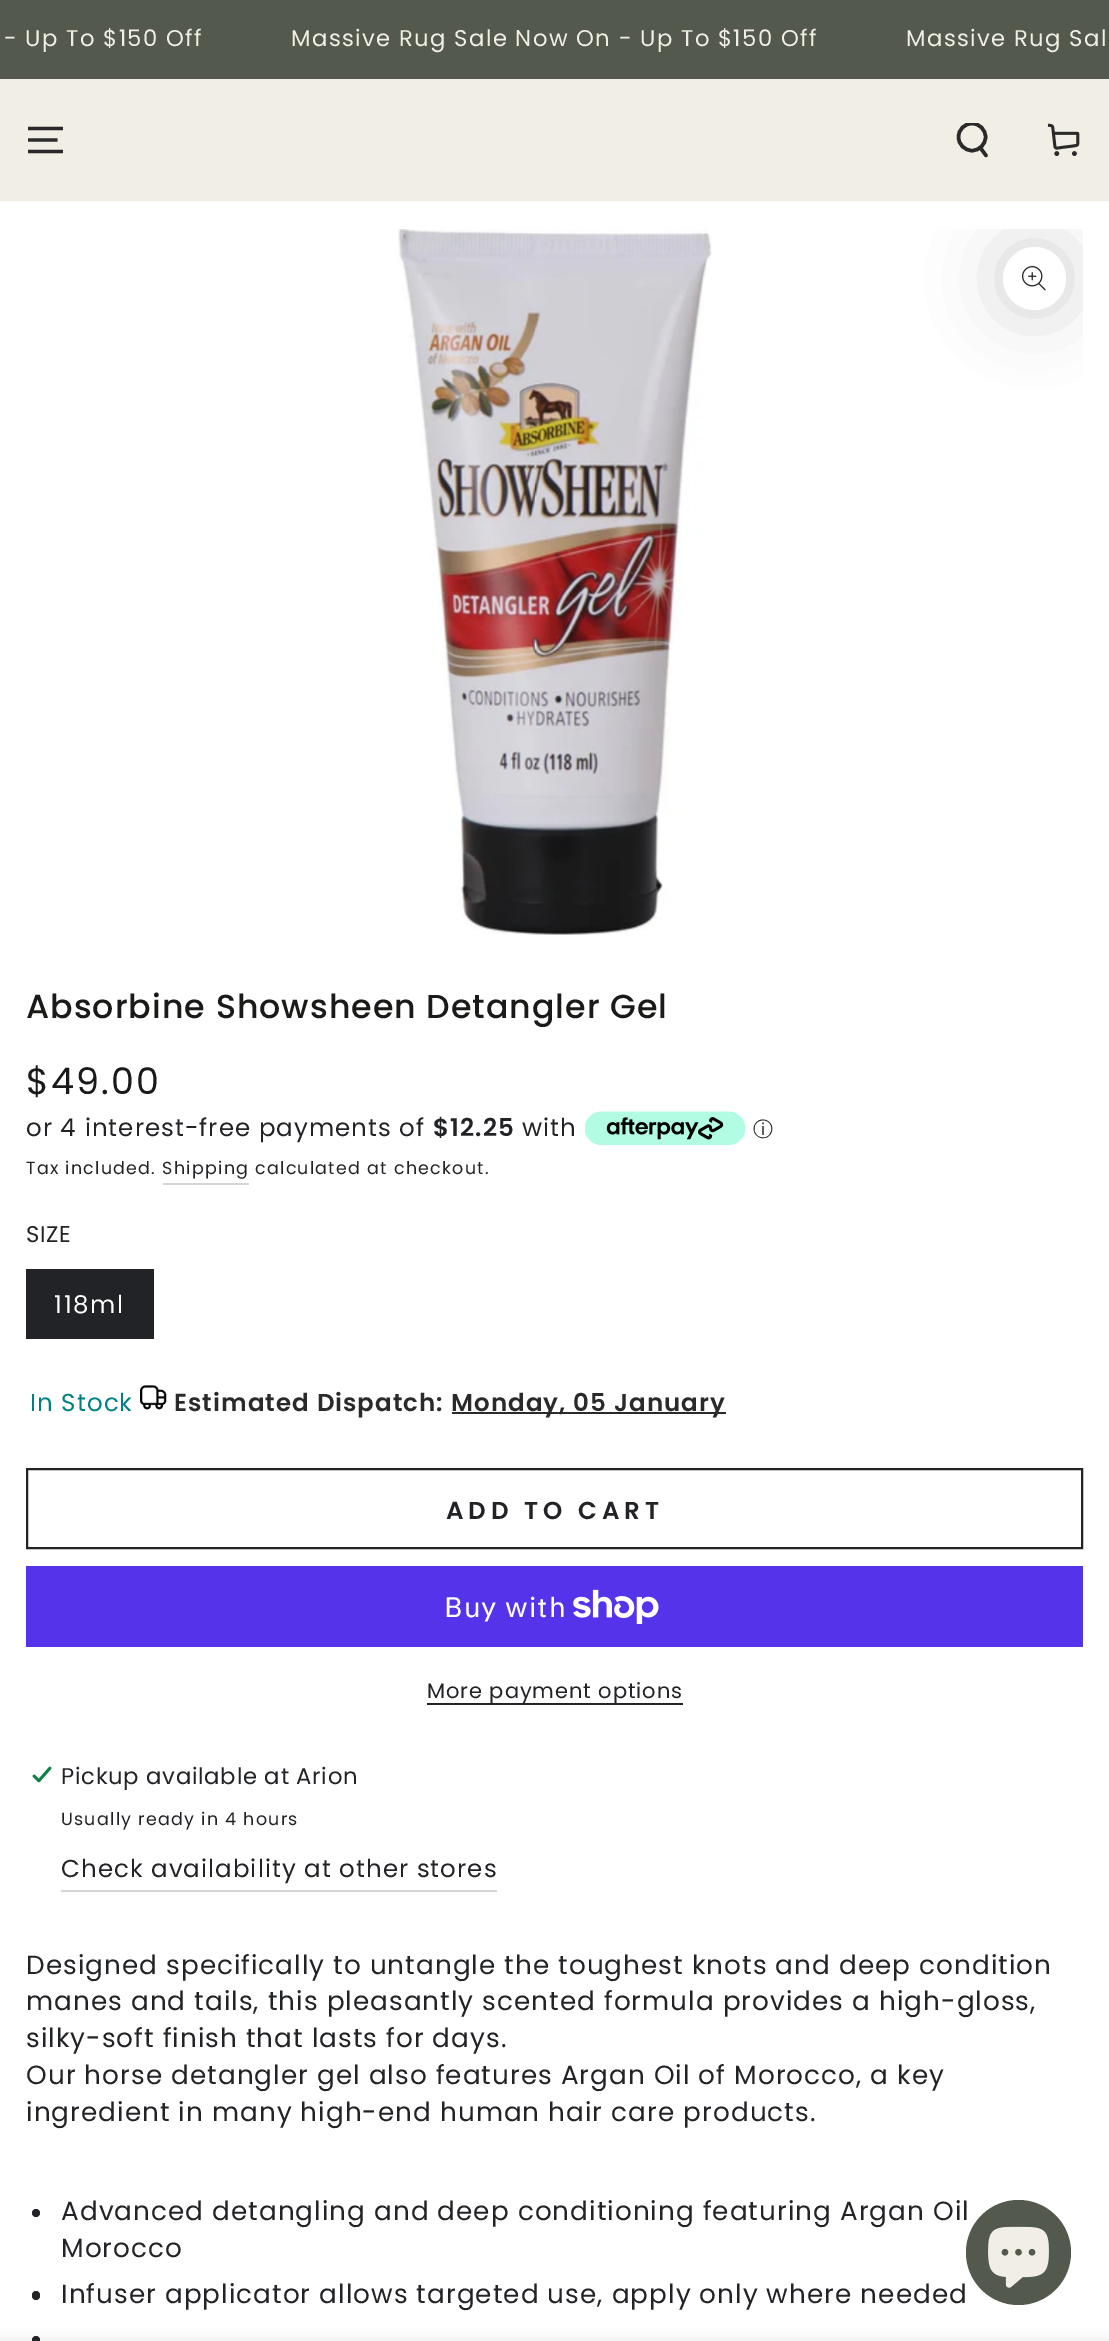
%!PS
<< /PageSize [1109 2341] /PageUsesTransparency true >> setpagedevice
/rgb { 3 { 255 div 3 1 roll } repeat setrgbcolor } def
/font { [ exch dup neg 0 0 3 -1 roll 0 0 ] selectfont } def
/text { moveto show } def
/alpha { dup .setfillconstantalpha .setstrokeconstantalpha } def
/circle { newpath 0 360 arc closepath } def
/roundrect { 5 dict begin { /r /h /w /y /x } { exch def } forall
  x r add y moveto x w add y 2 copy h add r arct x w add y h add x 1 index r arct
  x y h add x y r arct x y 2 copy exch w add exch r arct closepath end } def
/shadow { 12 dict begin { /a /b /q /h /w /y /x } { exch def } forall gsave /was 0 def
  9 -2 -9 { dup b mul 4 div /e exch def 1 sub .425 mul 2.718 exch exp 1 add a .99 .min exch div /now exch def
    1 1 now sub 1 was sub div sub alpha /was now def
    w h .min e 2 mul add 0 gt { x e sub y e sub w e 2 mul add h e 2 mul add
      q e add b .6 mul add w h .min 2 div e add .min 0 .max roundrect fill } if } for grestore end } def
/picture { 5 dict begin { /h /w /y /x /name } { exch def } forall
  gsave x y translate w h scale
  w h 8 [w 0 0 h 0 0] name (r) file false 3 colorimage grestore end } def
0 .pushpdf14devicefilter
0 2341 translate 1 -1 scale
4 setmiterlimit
255 255 255 rgb
0 0 1109 2341 rectfill
83 89 77 rgb
0 0 1109 79 rectfill
gsave
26 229 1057 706 rectclip
33 35 38 rgb
1003 247 63 63 31.5 35 0.2 shadow
grestore
251 250 247 rgb
0 201 moveto 0 2 rlineto 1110 0 rlineto 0 -122 rlineto 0 120 rlineto closepath fill
241 239 229 rgb
0 79 1109 122 rectfill
43 41 41 rgb
3.3 setlinewidth
28 151.5 moveto 35 0 rlineto 28 140 moveto 29.5 0 rlineto 28 128.5 moveto 35 0 rlineto stroke
gsave
956 123 35 35 rectclip
3.5 setlinewidth
972 137 13.5 circle stroke
grestore
3.5 setlinewidth
1 setlinecap
980.5 148 moveto 5.5 7.5 rlineto stroke
(img_01.rgb) 1047 123 33 33 picture
(img_02.rgb) 398 229 314 706 picture
255 255 255 rgb
1034.5 278.5 31.5 circle fill
(img_03.rgb) 1022 266 24 25 picture
(img_04.rgb) 585 1111 161 35 picture
210 213 217 rgb
163 1183 86 2 rectfill
33 35 38 rgb
26 1269 128 70 rectfill
(img_05.rgb) 140 1385 27 25 picture
43 41 41 rgb
452 1412 274 2 rectfill
33 35 38 rgb
2 setlinewidth
0 setlinecap
27 1469 1055 79 rectstroke
84 51 235 rgb
26 1566 1057 81 rectfill
(img_06.rgb) 573 1589 86 35 picture
33 35 38 rgb
427 1703 256 2 rectfill
(img_07.rgb) 32 1766 20 17 picture
210 213 217 rgb
61 1890 436 2 rectfill
33 35 38 rgb
36 2213 4 circle fill
32 2291 8 9 4 roundrect fill
32 2336 8 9 4 roundrect fill
0 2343 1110 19 0 7 0.15 shadow
/Poppins-Regular 22.75 font
241 239 229 rgb
4 46 moveto 1.35 0 (- Up To $150 Off) ashow
291 46 moveto 1.35 0 (Massive Rug Sale Now On - Up To $150 Off) ashow
906 46 moveto 1.35 0 (Massive Rug Sal) ashow
/Poppins-Medium 33.25 font
26 27 24 rgb
26 1018 moveto 1 0 (Absorbine Showsheen Detangler Gel) ashow
/Poppins-Regular 36.5 font
26 1094 moveto 2.25 0 ($49.00) ashow
/Poppins-Regular 24.5 font
33 35 38 rgb
26 1136 moveto 1.05 0 (or 4 interest-free payments of) ashow
/Poppins-SemiBold 24.5 font
433 1136 moveto 1.05 0 ($12.25) ashow
/Poppins-Regular 24.5 font
522 1136 moveto 1.05 0 (with) ashow
/WenQuanYiZenHei-Medium 20 font
(ⓘ) 753 1136 text
/Poppins-Regular 17.5 font
26 1174 moveto 1.25 0 (Tax included. Shipping) ashow
255 1174 moveto 1.25 0 (calculated at checkout.) ashow
/Poppins-Regular 22.75 font
26 1242 moveto 0.7 0 (SIZE) ashow
/Poppins-Regular 24.5 font
255 255 255 rgb
54 1313 moveto 1.75 0 (118ml) ashow
0 128 128 rgb
30 1411 moveto 1.05 0 (In Stock) ashow
/Poppins-SemiBold 24.5 font
43 41 41 rgb
174 1411 moveto 1.05 0 (Estimated Dispatch:) ashow
451 1411 moveto 1.05 0 (Monday, 05 January) ashow
33 35 38 rgb
446 1519 moveto 4.9 0 (ADD TO CART) ashow
/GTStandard-Regular 28 font
255 255 255 rgb
444 1617 moveto 1.05 0 (Buy with) ashow
/Poppins-Regular 21 font
33 35 38 rgb
427 1698 moveto 0.9 0 (More payment options) ashow
/Poppins-Regular 22.75 font
61 1784 moveto 0.7 0 (Pickup available at Arion) ashow
/Poppins-Regular 17.5 font
61 1825 moveto 1.25 0 (Usually ready in 4 hours) ashow
/Poppins-Regular 24.5 font
61 1877 moveto 1.05 0 (Check availability at other stores) ashow
/Poppins-Regular 26.25 font
26 1974 moveto 1.05 0 (Designed specifically to untangle the toughest knots and deep condition) ashow
26 2010 moveto 1.05 0 (manes and tails, this pleasantly scented formula provides a high-gloss,) ashow
26 2047 moveto 1.05 0 (silky-soft finish that lasts for days.) ashow
26 2084 moveto 1.05 0 (Our horse detangler gel also features Argan Oil of Morocco, a key) ashow
26 2121 moveto 1.05 0 (ingredient in many high-end human hair care products.) ashow
61 2220 moveto 1.05 0 (Advanced detangling and deep conditioning featuring Argan Oil) ashow
61 2257 moveto 1.05 0 (Morocco) ashow
61 2303 moveto 1.05 0 (Infuser applicator allows targeted use, apply only where needed) ashow
83 89 77 rgb
1018.5 2252.5 52.5 circle fill
(img_08.rgb) 988 2226 61 62 picture
.poppdf14devicefilter showpage
